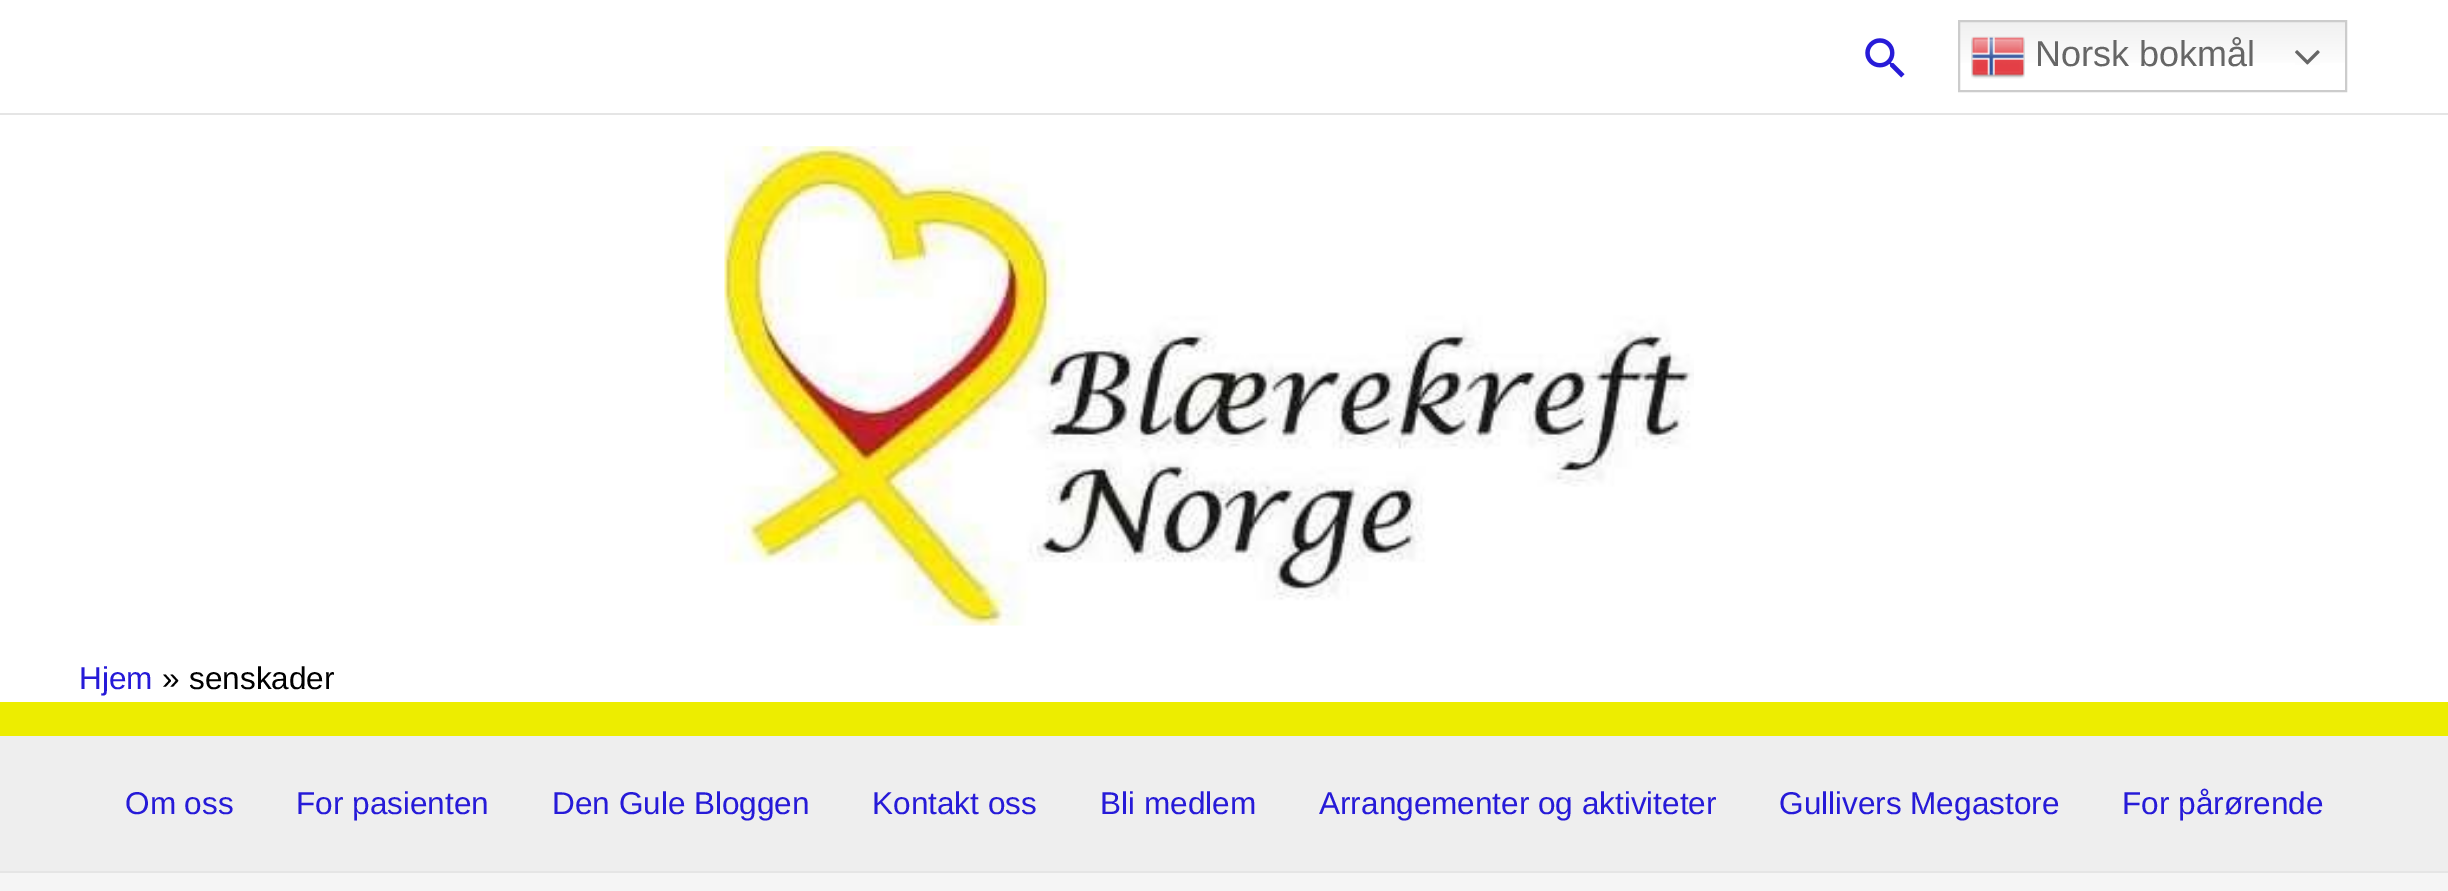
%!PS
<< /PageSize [2448 891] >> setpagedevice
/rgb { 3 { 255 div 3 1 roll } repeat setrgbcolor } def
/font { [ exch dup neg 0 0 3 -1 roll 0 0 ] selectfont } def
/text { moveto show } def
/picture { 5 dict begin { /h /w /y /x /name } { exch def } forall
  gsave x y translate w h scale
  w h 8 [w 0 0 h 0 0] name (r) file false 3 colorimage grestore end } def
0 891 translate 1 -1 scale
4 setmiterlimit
245 245 245 rgb
0 0 2448 891 rectfill
255 255 255 rgb
0 0 2448 113 rectfill
229 229 229 rgb
0 113 2448 2 rectfill
(img_01.rgb) 1865 38 40 40 picture
gsave 1960 22 moveto 385 0 rlineto 0 41 rlineto -385 0 rlineto closepath clip newpath
<< /ShadingType 2 /ColorSpace /DeviceRGB /Coords [2152 20 2152 92] /Extend [true true] /Function << /FunctionType 3 /Domain [0 1] /Functions [<< /FunctionType 2 /Domain [0 1] /C0 [0.937 0.937 0.937] /C1 [1 1 1] /N 1 >> << /FunctionType 2 /Domain [0 1] /C0 [1 1 1] /C1 [1 1 1] /N 1 >>] /Bounds [0.7] /Encode [0 1 0 1] >> >> shfill grestore
204 204 204 rgb
2 setlinewidth
1959 21 387 70 rectstroke
(img_02.rgb) 1971 36 54 43 picture
(img_03.rgb) 2295 50 25 15 picture
255 255 255 rgb
0 115 2448 587 rectfill
237 237 0 rgb
0 702 2448 34 rectfill
(img_04.rgb) 724 146 970 480 picture
238 238 238 rgb
0 736 2448 135 rectfill
229 229 229 rgb
0 871 2448 2 rectfill
/LiberationSans-Regular 36 font
102 102 102 rgb
(Norsk bokmål) 2035 66 text
/LiberationSans-Regular 31.5 font
38 26 216 rgb
(Hjem) 79 689 text
0 0 0 rgb
(») 162 689 text
(senskader) 189 689 text
38 26 216 rgb
(Om oss) 125 814 text
(For pasienten) 296 814 text
(Den Gule Bloggen) 552 814 text
(Kontakt oss) 872 814 text
(Bli medlem) 1100 814 text
(Arrangementer og aktiviteter) 1319 814 text
(Gullivers Megastore) 1779 814 text
(For pårørende) 2122 814 text
showpage
